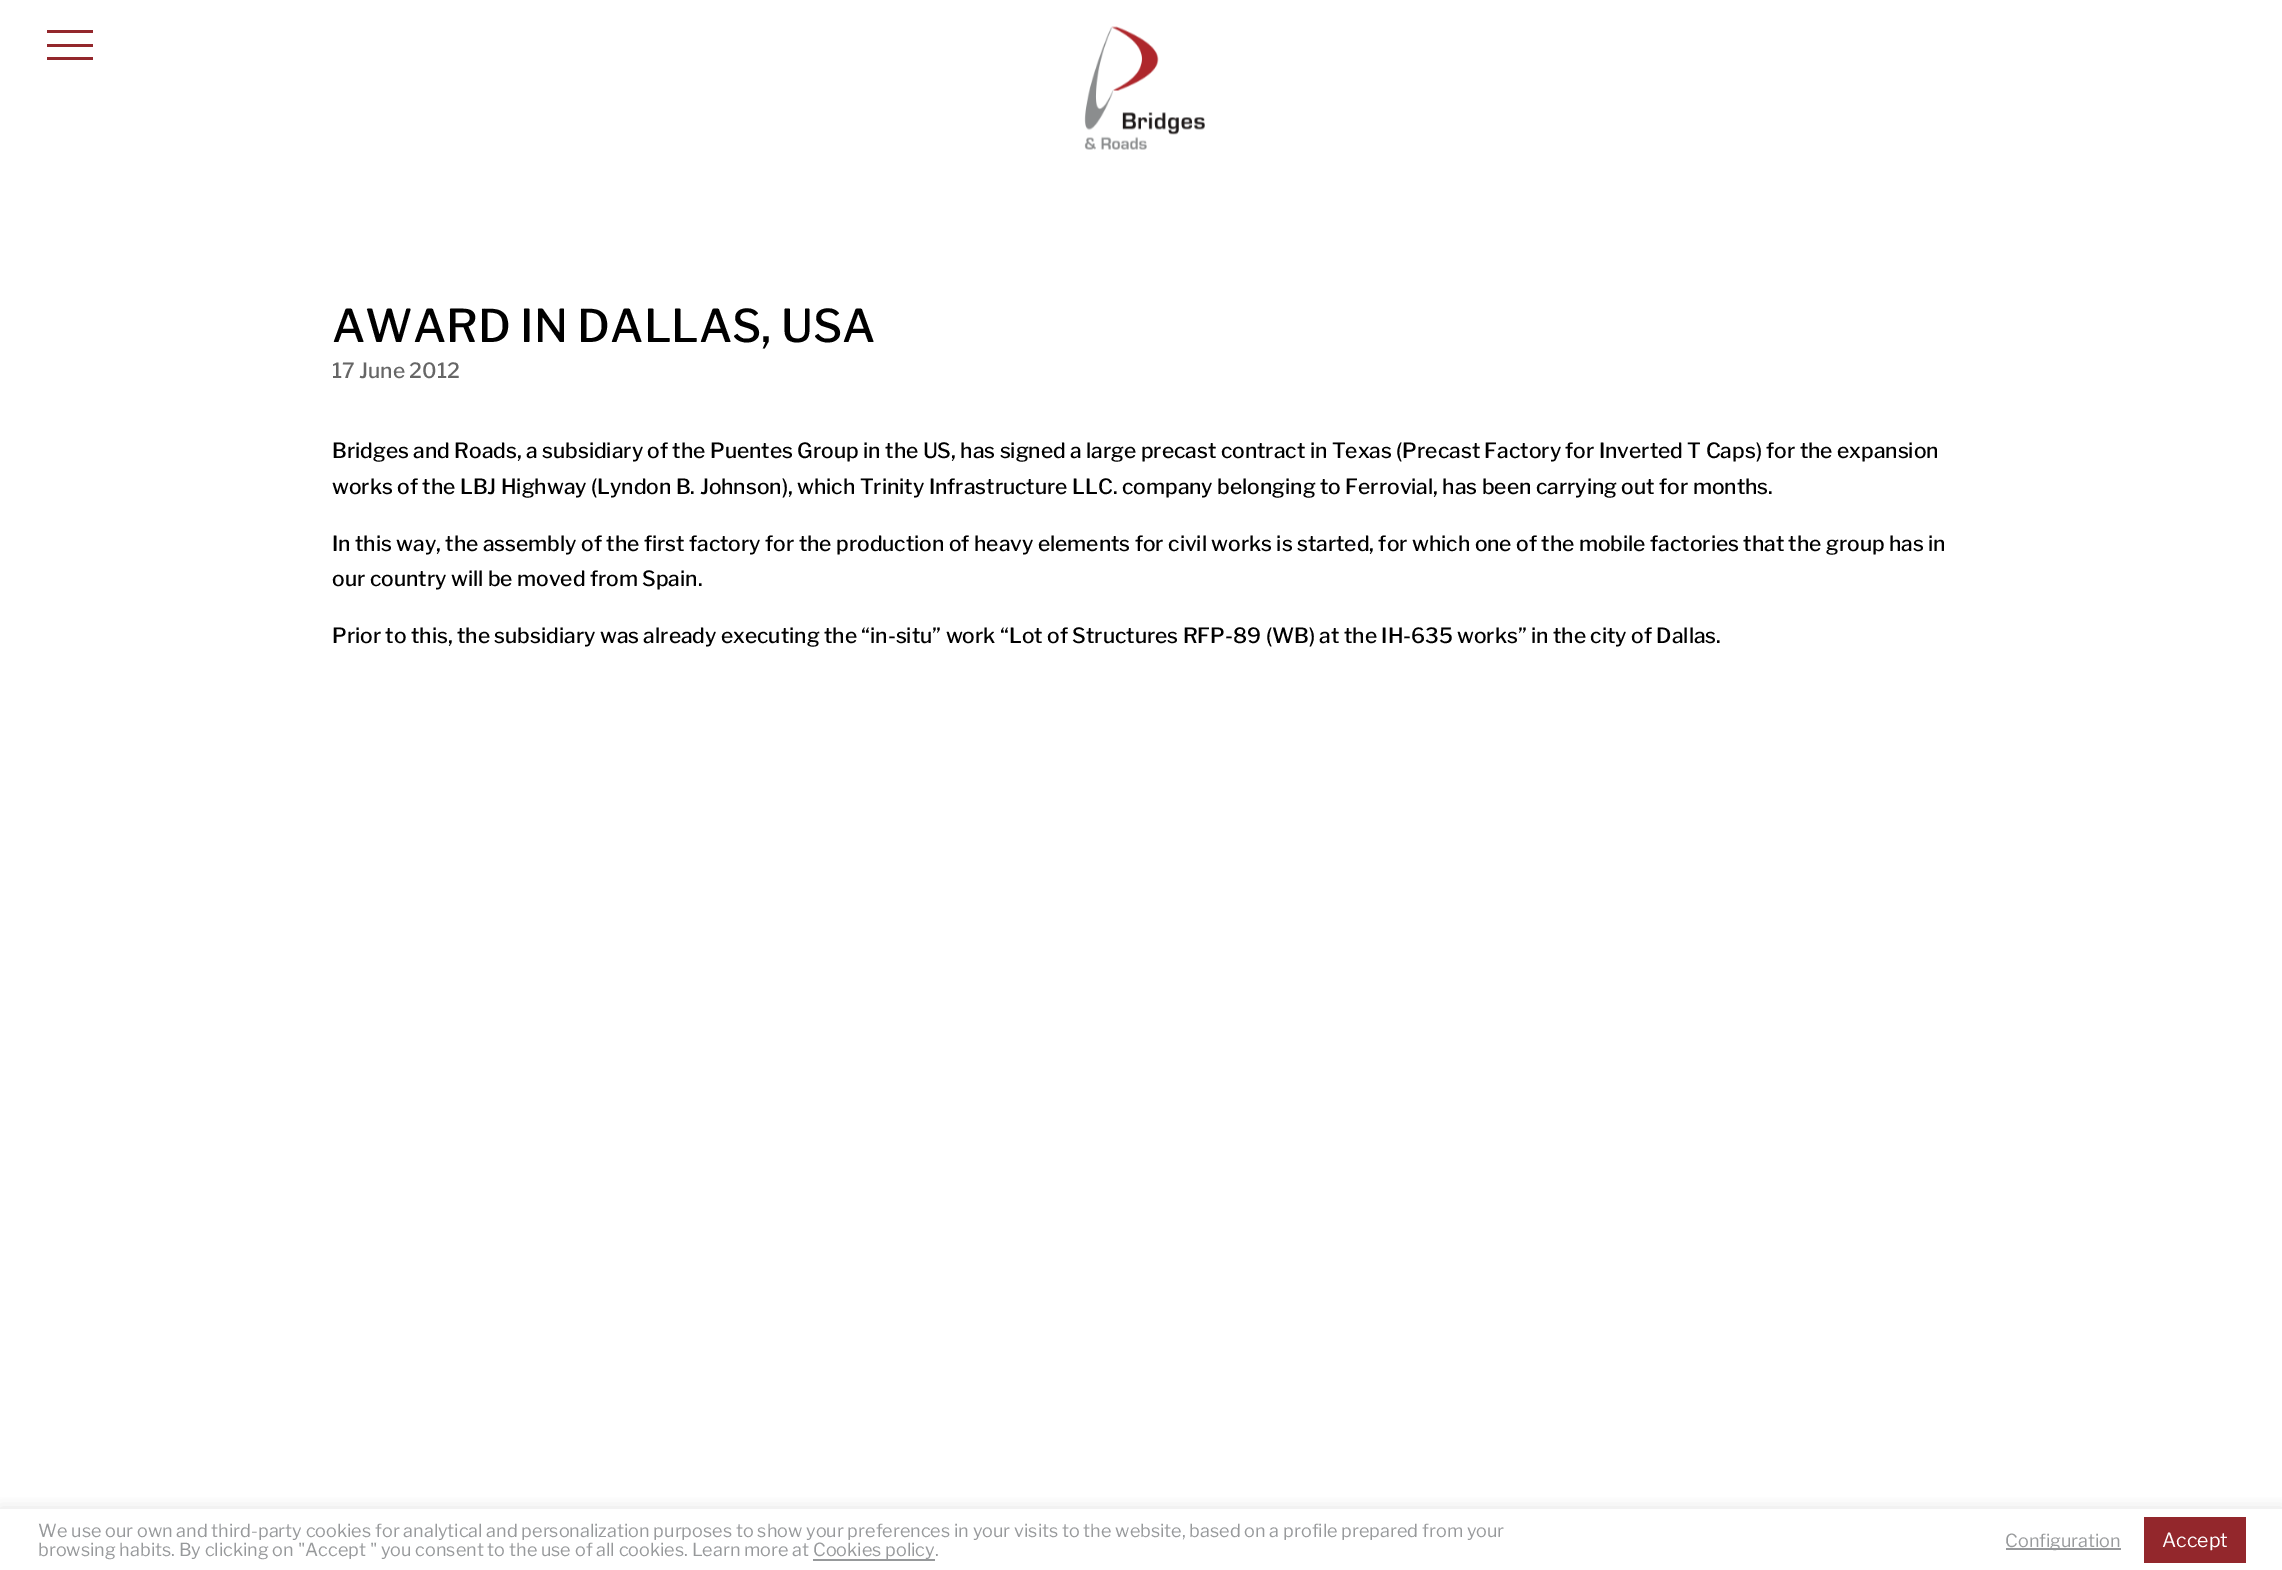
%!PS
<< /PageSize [2282 1570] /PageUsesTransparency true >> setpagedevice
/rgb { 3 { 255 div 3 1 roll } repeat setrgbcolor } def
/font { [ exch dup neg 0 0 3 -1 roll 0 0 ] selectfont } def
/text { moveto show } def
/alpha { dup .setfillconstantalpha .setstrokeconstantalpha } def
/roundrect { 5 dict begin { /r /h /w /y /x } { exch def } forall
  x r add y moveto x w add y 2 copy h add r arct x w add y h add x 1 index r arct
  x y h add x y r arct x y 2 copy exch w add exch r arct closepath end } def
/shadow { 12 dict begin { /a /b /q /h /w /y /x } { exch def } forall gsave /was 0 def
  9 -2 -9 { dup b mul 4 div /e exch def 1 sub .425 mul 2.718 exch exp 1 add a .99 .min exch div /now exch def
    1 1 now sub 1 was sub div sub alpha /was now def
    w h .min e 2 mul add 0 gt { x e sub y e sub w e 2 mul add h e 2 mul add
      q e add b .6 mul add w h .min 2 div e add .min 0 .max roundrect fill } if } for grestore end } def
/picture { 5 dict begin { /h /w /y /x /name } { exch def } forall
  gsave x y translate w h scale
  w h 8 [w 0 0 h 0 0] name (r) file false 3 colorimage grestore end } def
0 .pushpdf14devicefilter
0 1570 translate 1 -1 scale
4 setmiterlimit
255 255 255 rgb
0 0 2282 1570 rectfill
147 39 44 rgb
47 44 46 3 rectfill
47 30 46 3 rectfill
47 57 46 3 rectfill
(img_01.rgb) 1084 26 121 124 picture
gsave
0 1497 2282 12 rectclip
172 171 171 rgb
0 1508 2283 61 0 7.5 0.3 shadow
grestore
151 153 155 rgb
813 1559 122 2 rectfill
2006 1548 115 2 rectfill
147 39 44 rgb
2144 1517 102 46 rectfill
/LibreFranklin-Thin 45 font
0 0 0 rgb
(AWARD IN DALLAS, USA) 332 342 text
/LibreFranklin-Thin 21 font
102 102 102 rgb
(17 June 2012) 332 378 text
0 0 0 rgb
(Bridges and Roads, a subsidiary of the Puentes Group in the US, has signed a large precast contract in Texas \(Precast Factory for Inverted T Caps\) for the expansion) 332 458 text
(works of the LBJ Highway \(Lyndon B. Johnson\), which Trinity Infrastructure LLC. company belonging to Ferrovial, has been carrying out for months.) 332 494 text
(In this way, the assembly of the first factory for the production of heavy elements for civil works is started, for which one of the mobile factories that the group has in) 332 551 text
(our country will be moved from Spain.) 332 586 text
(Prior to this, the subsidiary was already executing the “in-situ” work “Lot of Structures RFP-89 \(WB\) at the IH-635 works” in the city of Dallas.) 332 643 text
/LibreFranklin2-Thin 18 font
151 153 155 rgb
(We use our own and third-party cookies for analytical and personalization purposes to show your preferences in your visits to the website, based on a profile prepared from your) 38 1537 text
(browsing habits. By clicking on "Accept " you consent to the use of all cookies. Learn more at Cookies policy.) 38 1556 text
(Configuration) 2005 1547 text
/LibreFranklin2-Thin 19.5 font
255 255 255 rgb
(Accept) 2162 1547 text
.poppdf14devicefilter showpage
